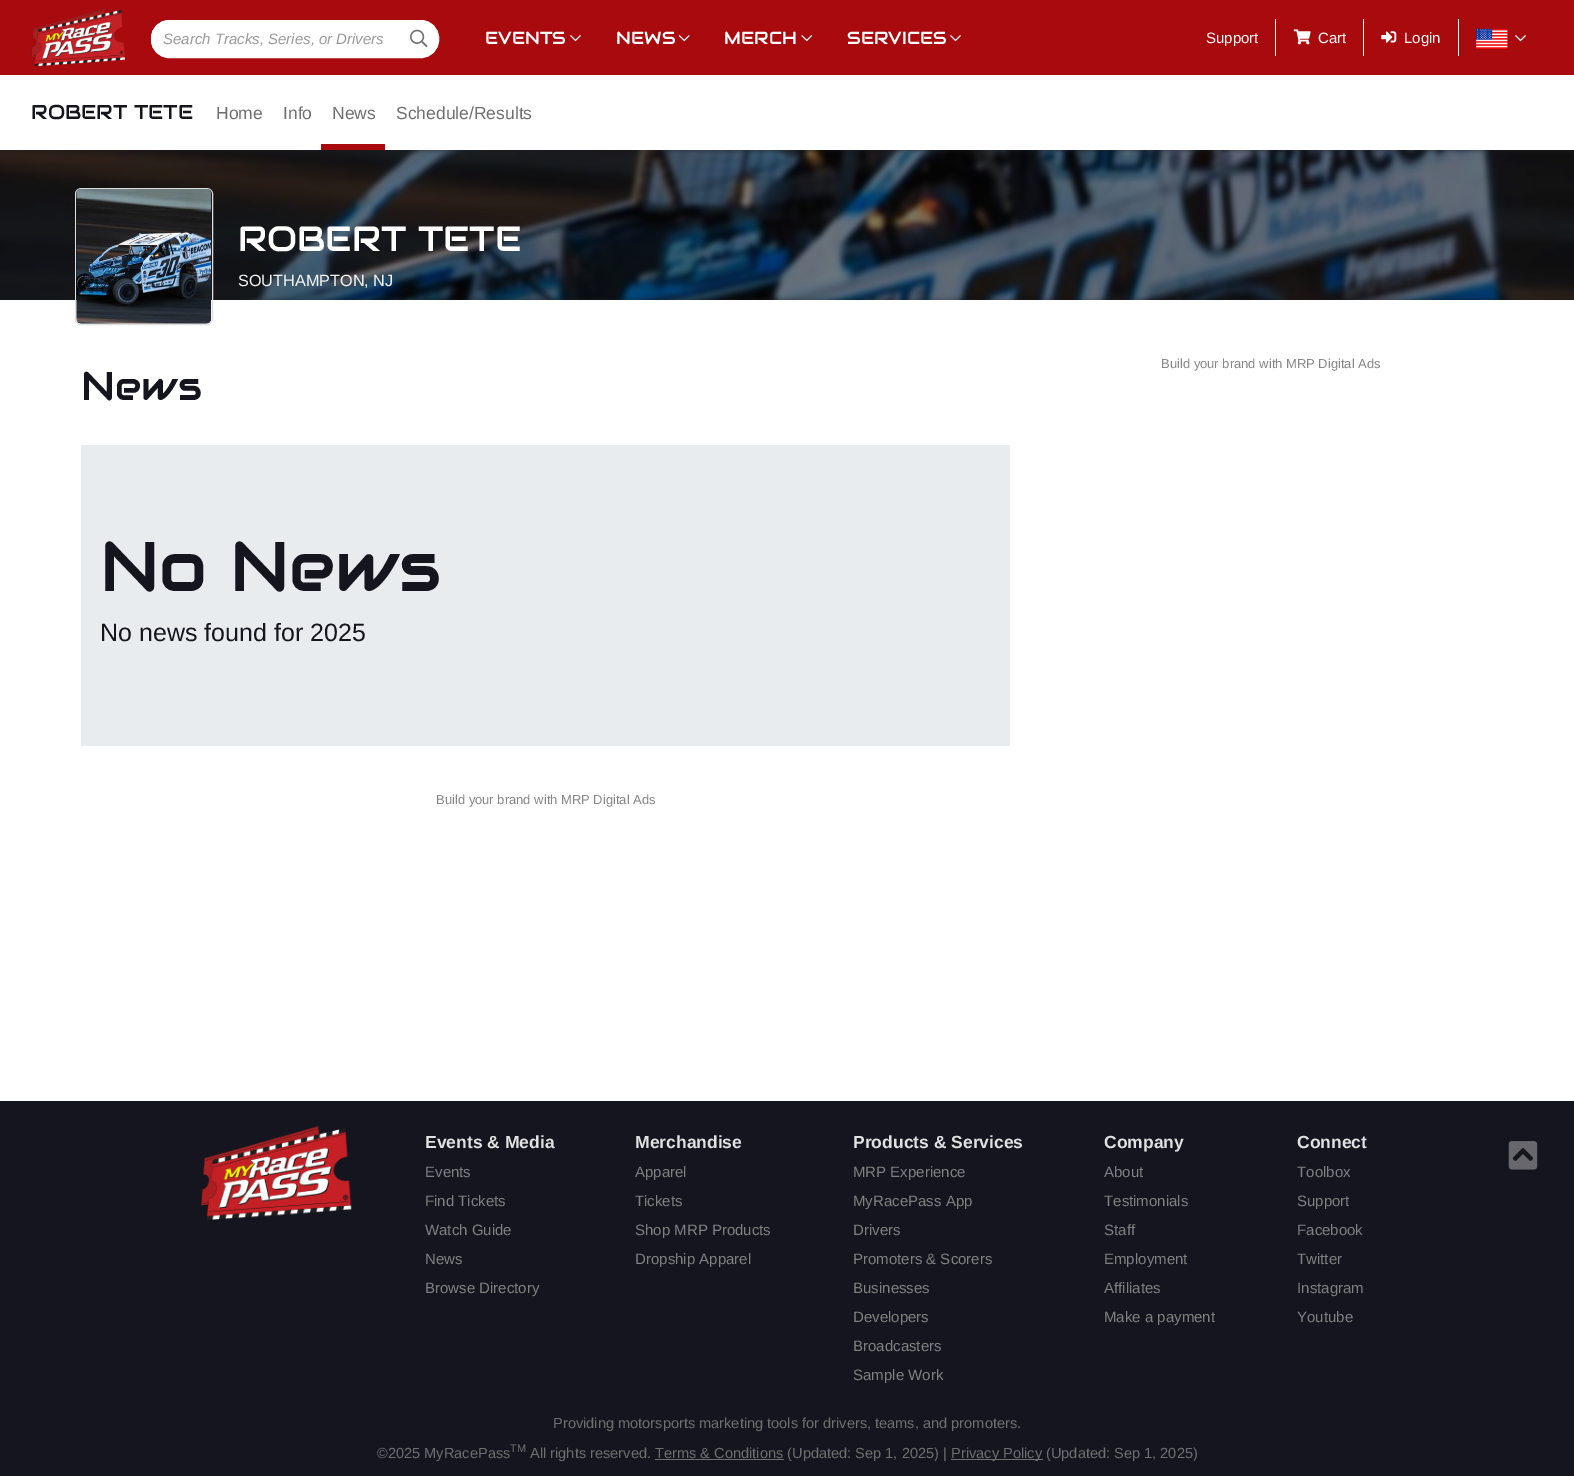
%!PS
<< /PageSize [1574 1476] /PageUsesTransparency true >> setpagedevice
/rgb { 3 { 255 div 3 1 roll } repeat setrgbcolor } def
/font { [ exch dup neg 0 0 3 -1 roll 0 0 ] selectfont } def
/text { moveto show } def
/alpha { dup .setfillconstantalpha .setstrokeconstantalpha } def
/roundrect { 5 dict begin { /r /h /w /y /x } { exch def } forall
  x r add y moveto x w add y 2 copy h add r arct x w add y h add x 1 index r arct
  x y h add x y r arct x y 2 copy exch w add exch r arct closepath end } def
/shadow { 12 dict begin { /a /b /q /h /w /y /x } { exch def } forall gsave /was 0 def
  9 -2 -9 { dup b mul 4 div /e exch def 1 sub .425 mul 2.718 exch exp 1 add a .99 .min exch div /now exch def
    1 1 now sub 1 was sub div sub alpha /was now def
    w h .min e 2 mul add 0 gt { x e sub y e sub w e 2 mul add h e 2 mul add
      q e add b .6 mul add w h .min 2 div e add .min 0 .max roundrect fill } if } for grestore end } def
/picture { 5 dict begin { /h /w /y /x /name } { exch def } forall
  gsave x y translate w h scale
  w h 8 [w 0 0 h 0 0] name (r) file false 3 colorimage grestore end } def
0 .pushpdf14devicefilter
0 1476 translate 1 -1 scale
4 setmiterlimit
255 255 255 rgb
0 0 1574 1476 rectfill
(img_09.rgb) 0 150 1574 150 picture
gsave
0 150 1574 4 rectclip
31 31 33 rgb
0 76 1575 75 0 2 0.5 shadow
grestore
169 10 14 rgb
0 0 1574 75 rectfill
(img_01.rgb) 31 9 94 58 picture
255 255 255 rgb
151.5 20.5 287 37 17.5 roundrect gsave fill grestore
stroke
(img_02.rgb) 410 29 18 19 picture
(img_03.rgb) 570 35 11 7 picture
(img_04.rgb) 678 35 12 7 picture
(img_05.rgb) 801 35 12 7 picture
(img_03.rgb) 950 35 11 7 picture
1275 19 1 37 rectfill
(img_06.rgb) 1293 29 18 16 picture
1363 19 1 37 rectfill
(img_07.rgb) 1381 31 16 12 picture
1458 19 1 37 rectfill
(img_08.rgb) 1476 28 32 21 picture
(img_03.rgb) 1515 35 11 7 picture
169 10 14 rgb
321 144 64 6 rectfill
31 31 33 rgb
0 299 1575 801 0 2 0.35 shadow
255 255 255 rgb
0 300 1574 801 rectfill
225 225 225 rgb
75.5 188.5 137 136 5.5 roundrect stroke
(img_10.rgb) 76 188 136 136 picture
233 236 239 rgb
81 445 929 301 rectfill
21 21 31 rgb
0 1101 1574 375 rectfill
(img_11.rgb) 201 1126 151 94 picture
(img_12.rgb) 1508 1141 30 29 picture
111 111 111 rgb
655 1459 129 1 rectfill
951 1459 92 1 rectfill
/LiberationSans-Italic 15 font
153 153 153 rgb
(Search Tracks, Series, or Drivers) 163 44 text
/Audiowide-Regular 17.5 font
255 255 255 rgb
(EVENTS) 485 44 text
(NEWS) 616 44 text
(MERCH) 724 44 text
(SERVICES) 847 44 text
/LiberationSans-Regular 15 font
(Support) 1206 43 text
(Cart) 1318 43 text
(Login) 1404 43 text
/Audiowide-Regular 20 font
21 21 30 rgb
(ROBERT TETE) 31 119 text
/LiberationSans-Regular 17.5 font
111 111 111 rgb
(Home) 216 119 text
(Info) 283 119 text
(News) 332 119 text
(Schedule/Results) 396 119 text
/Audiowide-Regular 35 font
255 255 255 rgb
(ROBERT TETE) 238 251 text
/LiberationSans-Regular 16.25 font
245 245 245 rgb
(SOUTHAMPTON, NJ) 238 286 text
/LiberationSans-Regular 13 font
134 134 134 rgb
(Build your brand with MRP Digital Ads) 1161 368 text
/Audiowide-Regular 40 font
21 21 30 rgb
(News) 81 400 text
/Audiowide-Regular 70 font
(No News) 100 591 text
/LiberationSans-Regular 25 font
(No news found for 2025) 100 641 text
/LiberationSans-Regular 13 font
134 134 134 rgb
(Build your brand with MRP Digital Ads) 436 804 text
/LiberationSans-Bold 17.5 font
225 225 225 rgb
(Events & Media) 425 1148 text
/LiberationSans-Regular 15 font
128 128 128 rgb
(Events) 425 1177 text
(Find Tickets) 425 1206 text
(Watch Guide) 425 1235 text
(News) 425 1264 text
(Browse Directory) 425 1293 text
/LiberationSans-Bold 17.5 font
225 225 225 rgb
(Merchandise) 635 1148 text
/LiberationSans-Regular 15 font
128 128 128 rgb
(Apparel) 635 1177 text
(Tickets) 635 1206 text
(Shop MRP Products) 635 1235 text
(Dropship Apparel) 635 1264 text
/LiberationSans-Bold 17.5 font
225 225 225 rgb
(Products & Services) 853 1148 text
/LiberationSans-Regular 15 font
128 128 128 rgb
(MRP Experience) 853 1177 text
(MyRacePass App) 853 1206 text
(Drivers) 853 1235 text
(Promoters & Scorers) 853 1264 text
(Businesses) 853 1293 text
(Developers) 853 1322 text
(Broadcasters) 853 1351 text
(Sample Work) 853 1380 text
/LiberationSans-Bold 17.5 font
225 225 225 rgb
(Company) 1104 1148 text
/LiberationSans-Regular 15 font
128 128 128 rgb
(About) 1104 1177 text
(Testimonials) 1104 1206 text
(Staff) 1104 1235 text
(Employment) 1104 1264 text
(Affiliates) 1104 1293 text
(Make a payment) 1104 1322 text
/LiberationSans-Bold 17.5 font
225 225 225 rgb
(Connect) 1297 1148 text
/LiberationSans-Regular 15 font
128 128 128 rgb
(Toolbox) 1297 1177 text
(Support) 1297 1206 text
(Facebook) 1297 1235 text
(Twitter) 1297 1264 text
(Instagram) 1297 1293 text
(Youtube) 1297 1322 text
/LiberationSans-Regular 14.6 font
111 111 111 rgb
(Providing motorsports marketing tools for drivers, teams, and promoters.) 553 1428 text
(©2025 MyRacePass) 377 1458 text
/LiberationSans-Regular 11 font
(TM) 510 1452 text
/LiberationSans-Regular 14.6 font
(All rights reserved. Terms & Conditions \(Updated: Sep 1, 2025\) |) 530 1458 text
(Privacy Policy \(Updated: Sep 1, 2025\)) 951 1458 text
.poppdf14devicefilter showpage
